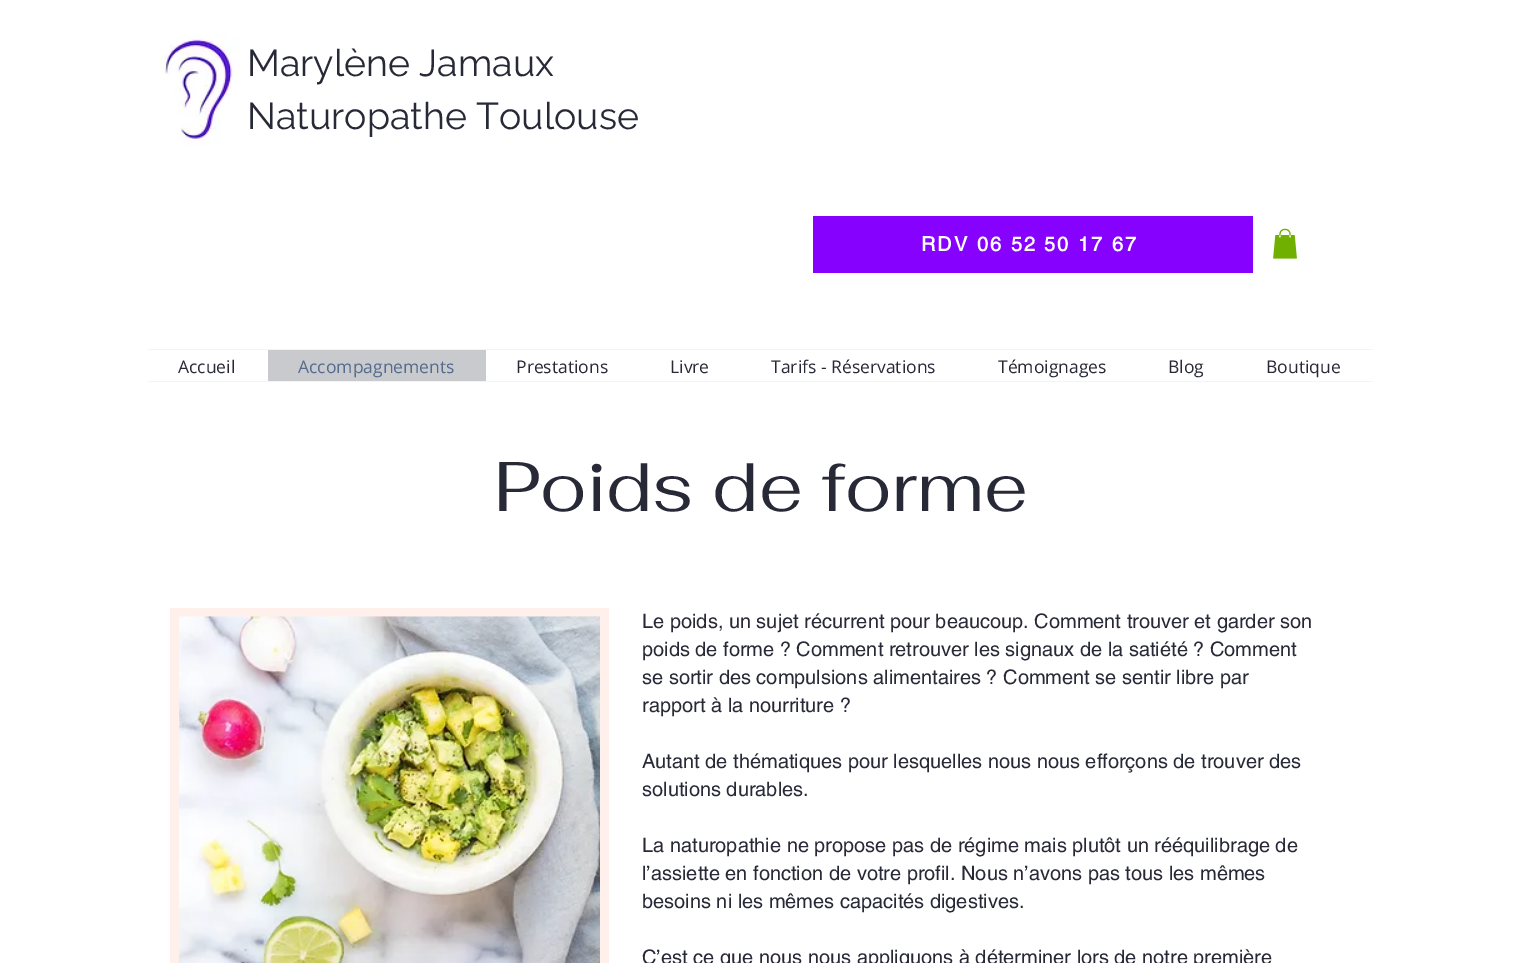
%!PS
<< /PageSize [1518 963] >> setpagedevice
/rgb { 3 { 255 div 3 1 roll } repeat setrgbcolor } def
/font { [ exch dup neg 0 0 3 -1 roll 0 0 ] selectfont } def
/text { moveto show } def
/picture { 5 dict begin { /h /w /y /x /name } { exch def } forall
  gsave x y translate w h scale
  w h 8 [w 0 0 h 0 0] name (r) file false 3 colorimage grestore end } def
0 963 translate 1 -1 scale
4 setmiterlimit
255 255 255 rgb
0 0 1518 963 rectfill
(img_01.rgb) 160 34 80 112 picture
135 1 255 rgb
813 216 440 57 rectfill
(img_02.rgb) 1273 228 24 31 picture
255 240 236 rgb
148 349 1225 1 rectfill
148 381 1225 1 rectfill
201 202 205 rgb
268 350 218 31 rectfill
255 240 236 rgb
170 608 439 355 rectfill
(img_03.rgb) 179 616 421 347 picture
/Raleway-Regular 37.5 font
40 41 54 rgb
(Marylène Jamaux) 247 76 text
(Naturopathe Toulouse) 247 129 text
/helvetica-Bold 20 font
255 255 255 rgb
921 251 moveto 2 0 (RDV 06 52 50 17 67) ashow
/OpenSans-Regular 17.5 font
40 41 54 rgb
(Accueil) 178 373 text
85 107 141 rgb
(Accompagnements) 298 373 text
40 41 54 rgb
(Prestations) 516 373 text
(Livre) 670 373 text
(Tarifs - Réservations) 771 373 text
(Témoignages) 998 373 text
(Blog) 1168 373 text
(Boutique) 1266 373 text
/Fahkwang-Regular 70 font
(Poids de forme) 494 511 text
/helvetica-Regular 20 font
(Le poids, un sujet récurrent pour beaucoup. Comment trouver et garder son) 642 628 text
(poids de forme ? Comment retrouver les signaux de la satiété ? Comment) 642 656 text
(se sortir des compulsions alimentaires ? Comment se sentir libre par) 642 684 text
(rapport à la nourriture ?) 642 712 text
(Autant de thématiques pour lesquelles nous nous efforçons de trouver des) 642 768 text
(solutions durables.) 642 796 text
(La naturopathie ne propose pas de régime mais plutôt un rééquilibrage de) 642 852 text
(l’assiette en fonction de votre profil. Nous n’avons pas tous les mêmes) 642 880 text
(besoins ni les mêmes capacités digestives.) 642 908 text
(C’est ce que nous nous appliquons à déterminer lors de notre première) 642 964 text
showpage
